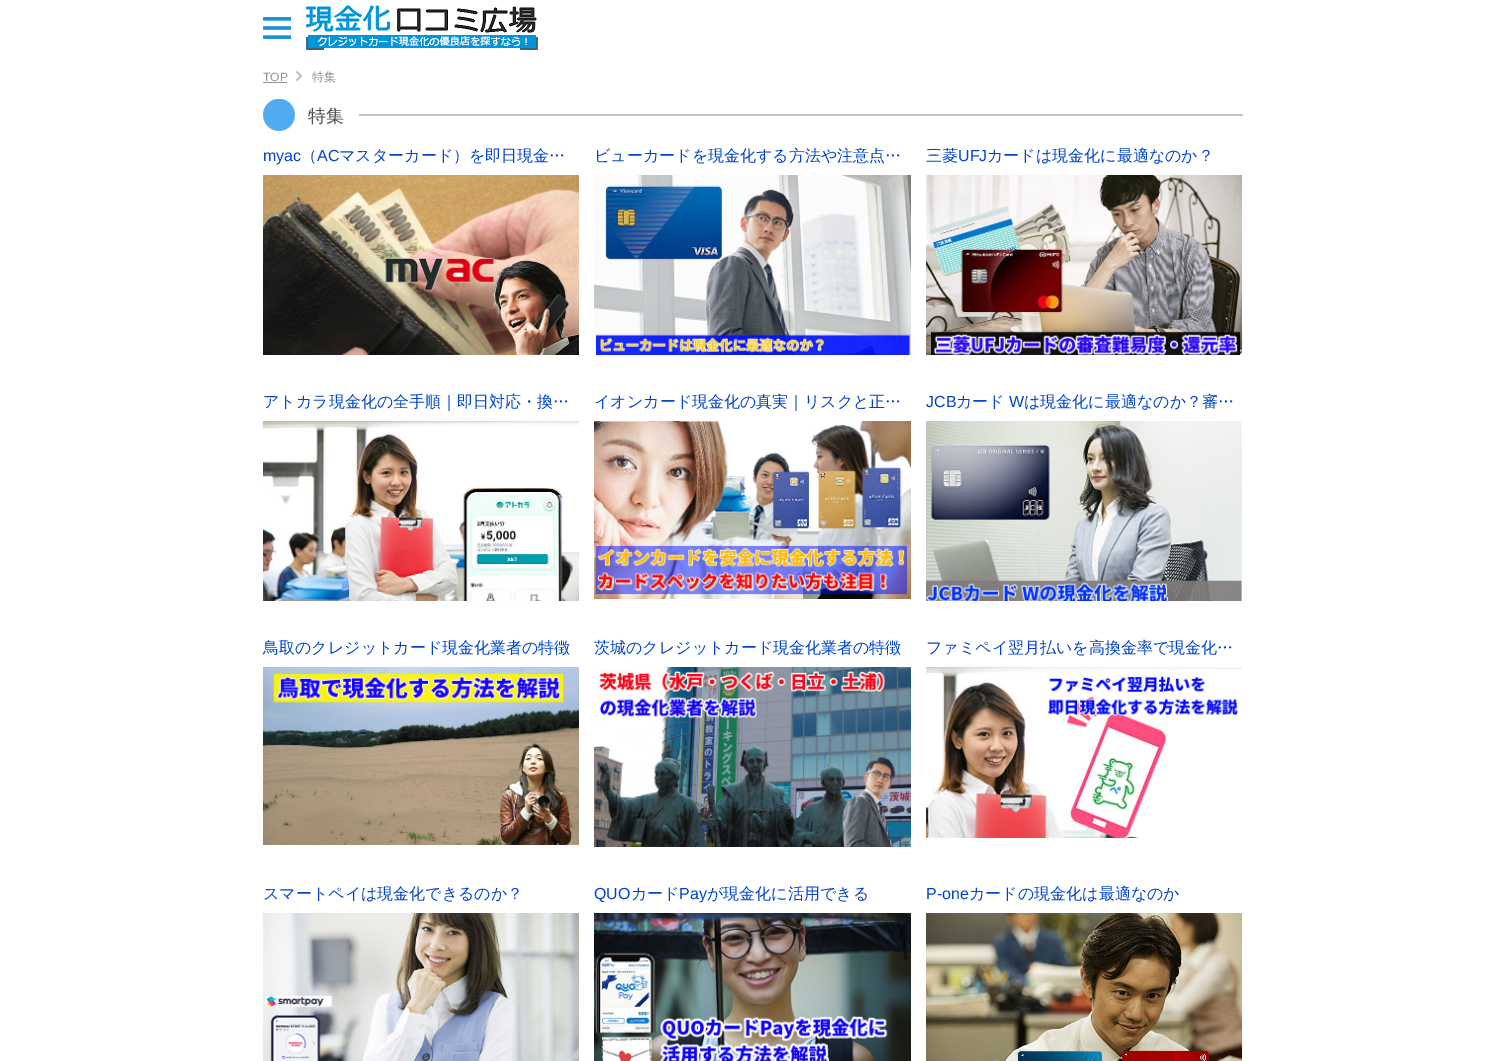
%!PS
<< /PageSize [1505 1061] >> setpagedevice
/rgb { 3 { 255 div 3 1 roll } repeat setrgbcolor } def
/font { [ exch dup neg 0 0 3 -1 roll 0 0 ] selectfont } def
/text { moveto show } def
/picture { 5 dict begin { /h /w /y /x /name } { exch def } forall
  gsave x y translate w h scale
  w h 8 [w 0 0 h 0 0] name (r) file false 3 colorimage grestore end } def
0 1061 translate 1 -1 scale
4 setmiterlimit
255 255 255 rgb
0 0 1505 1061 rectfill
(img_01.rgb) 263 17 28 22 picture
(img_02.rgb) 306 5 232 45 picture
(img_03.rgb) 296 71 6 10 picture
145 145 145 rgb
263 82 24 1 rectfill
(img_04.rgb) 263 99 980 32 picture
255 255 255 rgb
315 114 44 2 rectfill
(img_05.rgb) 263 175 316 180 picture
(img_06.rgb) 594 175 317 180 picture
(img_07.rgb) 926 175 316 180 picture
(img_08.rgb) 263 421 316 180 picture
(img_09.rgb) 594 421 317 178 picture
(img_10.rgb) 926 421 316 180 picture
(img_11.rgb) 263 667 316 178 picture
(img_12.rgb) 594 667 317 180 picture
(img_13.rgb) 926 667 316 171 picture
(img_14.rgb) 263 913 316 148 picture
(img_15.rgb) 594 913 317 148 picture
(img_16.rgb) 926 913 316 148 picture
/LiberationSans-Regular 12 font
145 145 145 rgb
(TOP) 263 81 text
/WenQuanYiZenHei-Medium 12 font
(特集) 312 81 text
/WenQuanYiZenHei-Medium 18 font
79 79 79 rgb
(特集) 308 122 text
/LiberationSans-Regular 16 font
0 68 204 rgb
(myac) 263 161 text
/WenQuanYiZenHei-Medium 16 font
(（) 301 161 text
/LiberationSans-Regular 16 font
(AC) 317 161 text
/WenQuanYiZenHei-Medium 16 font
(マスターカード）を即日現金…) 339 161 text
(ビューカードを現金化する方法や注意点…) 594 161 text
(三菱) 926 161 text
/LiberationSans-Regular 16 font
(UFJ) 958 161 text
/WenQuanYiZenHei-Medium 16 font
(カードは現金化に最適なのか？) 987 161 text
(アトカラ現金化の全手順｜即日対応・換…) 263 407 text
(イオンカード現金化の真実｜リスクと正…) 594 407 text
/LiberationSans-Regular 16 font
(JCB) 926 407 text
/WenQuanYiZenHei-Medium 16 font
(カード) 956 407 text
/LiberationSans-Regular 16 font
(W) 1009 407 text
/WenQuanYiZenHei-Medium 16 font
(は現金化に最適なのか？審…) 1024 407 text
(鳥取のクレジットカード現金化業者の特徴) 263 653 text
(茨城のクレジットカード現金化業者の特徴) 594 653 text
(ファミペイ翌月払いを高換金率で現金化…) 926 653 text
(スマートペイは現金化できるのか？) 263 899 text
/LiberationSans-Regular 16 font
(QUO) 594 899 text
/WenQuanYiZenHei-Medium 16 font
(カード) 631 899 text
/LiberationSans-Regular 16 font
(Pay) 679 899 text
/WenQuanYiZenHei-Medium 16 font
(が現金化に活用できる) 707 899 text
/LiberationSans-Regular 16 font
(P-one) 926 899 text
/WenQuanYiZenHei-Medium 16 font
(カードの現金化は最適なのか) 969 899 text
showpage
